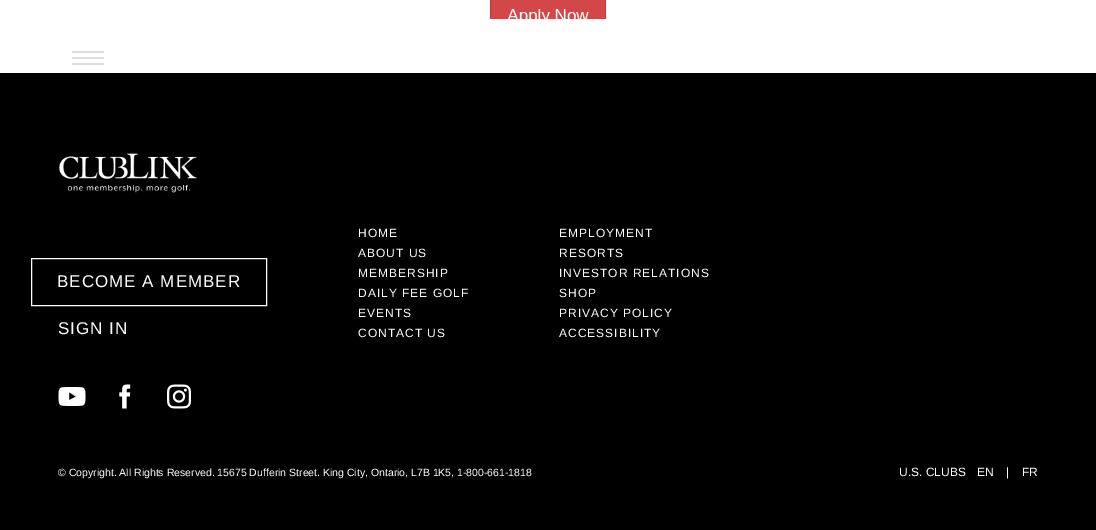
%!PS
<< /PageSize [1096 530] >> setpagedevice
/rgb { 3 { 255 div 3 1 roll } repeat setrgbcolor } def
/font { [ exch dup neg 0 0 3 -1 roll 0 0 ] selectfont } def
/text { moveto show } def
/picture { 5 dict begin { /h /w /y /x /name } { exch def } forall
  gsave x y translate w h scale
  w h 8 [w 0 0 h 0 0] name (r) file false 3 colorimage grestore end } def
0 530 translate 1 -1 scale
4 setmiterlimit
255 255 255 rgb
0 0 1096 530 rectfill
221 221 221 rgb
72 51 32 2 rectfill
72 57 32 2 rectfill
72 63 32 2 rectfill
(img_01.rgb) 490 0 116 19 picture
0 0 0 rgb
0 73 1096 457 rectfill
(img_02.rgb) 59 153 138 40 picture
255 255 255 rgb
31.5 258.5 235 47 rectstroke
(img_03.rgb) 58 387 28 19 picture
(img_04.rgb) 119 384 12 25 picture
(img_05.rgb) 167 384 24 25 picture
/LiberationSans-Regular 17 font
57 287 moveto 1 0 (BECOME A MEMBER) ashow
58 334 moveto 1 0 (SIGN IN) ashow
/LiberationSans-Regular 12 font
358 237 moveto 1 0 (HOME) ashow
559 237 moveto 1 0 (EMPLOYMENT) ashow
358 257 moveto 1 0 (ABOUT US) ashow
559 257 moveto 1 0 (RESORTS) ashow
358 277 moveto 1 0 (MEMBERSHIP) ashow
559 277 moveto 1 0 (INVESTOR RELATIONS) ashow
358 297 moveto 1 0 (DAILY FEE GOLF) ashow
559 297 moveto 1 0 (SHOP) ashow
358 317 moveto 1 0 (EVENTS) ashow
559 317 moveto 1 0 (PRIVACY POLICY) ashow
358 337 moveto 1 0 (CONTACT US) ashow
559 337 moveto 1 0 (ACCESSIBILITY) ashow
/LiberationSans-Regular 10.5 font
(© Copyright. All Rights Reserved. 15675 Dufferin Street. King City, Ontario, L7B 1K5, 1-800-661-1818) 58 476 text
/LiberationSans-Regular 12 font
(U.S. CLUBS) 899 476 text
(EN) 977 476 text
1006 476 moveto 1 0 (|) ashow
(FR) 1022 476 text
showpage
